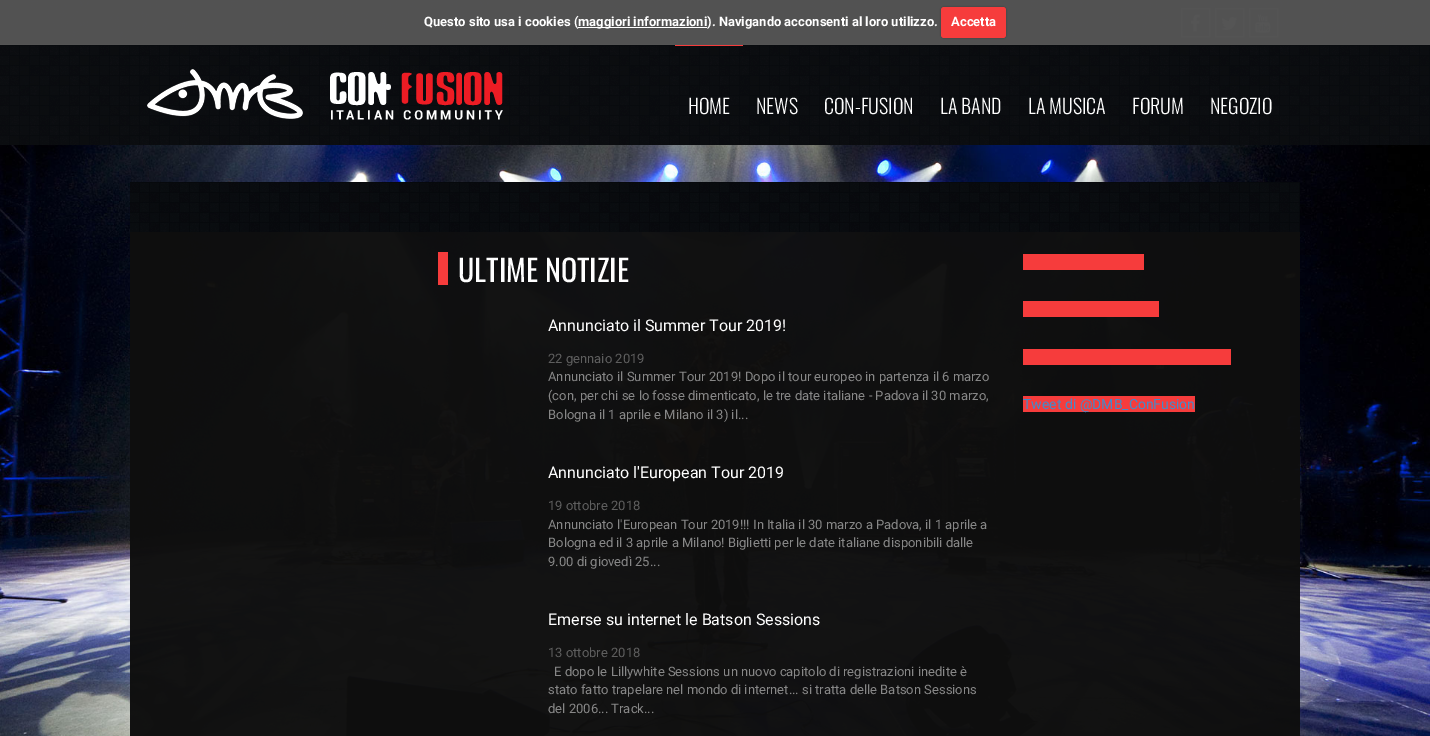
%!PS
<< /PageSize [1430 736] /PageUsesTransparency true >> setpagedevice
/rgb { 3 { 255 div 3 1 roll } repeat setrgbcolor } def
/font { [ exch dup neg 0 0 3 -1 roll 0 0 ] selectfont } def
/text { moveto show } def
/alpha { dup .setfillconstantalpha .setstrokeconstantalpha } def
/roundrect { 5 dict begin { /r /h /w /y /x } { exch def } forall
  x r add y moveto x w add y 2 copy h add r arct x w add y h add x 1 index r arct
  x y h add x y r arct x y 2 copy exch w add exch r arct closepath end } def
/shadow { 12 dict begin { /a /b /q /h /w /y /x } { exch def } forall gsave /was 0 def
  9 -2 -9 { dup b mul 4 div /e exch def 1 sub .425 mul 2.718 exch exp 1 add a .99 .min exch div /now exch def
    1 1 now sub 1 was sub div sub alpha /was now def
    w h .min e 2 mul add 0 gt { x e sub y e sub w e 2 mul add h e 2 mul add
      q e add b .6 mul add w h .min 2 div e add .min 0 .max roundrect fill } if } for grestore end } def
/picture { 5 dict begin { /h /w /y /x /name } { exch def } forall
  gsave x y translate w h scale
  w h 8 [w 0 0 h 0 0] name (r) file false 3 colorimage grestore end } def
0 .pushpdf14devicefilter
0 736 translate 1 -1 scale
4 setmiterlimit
255 255 255 rgb
0 0 1430 736 rectfill
41 41 43 rgb
0 0 1430 145 rectfill
(img_01.rgb) 0 0 1430 44 picture
43 43 43 rgb
1181.5 8.5 28 28 rectstroke
(img_02.rgb) 1191 14 9 18 picture
1215.5 8.5 28 28 rectstroke
(img_03.rgb) 1221 17 16 13 picture
1249.5 8.5 28 28 rectstroke
(img_04.rgb) 1255 14 16 19 picture
0.95 alpha
86 86 86 rgb
0 0 1430 45 rectfill
1 alpha
255 255 255 rgb
578 27 129 1 rectfill
0 0 0 rgb
941 7 65 31 3 1 0.25 shadow
246 60 60 rgb
941 7 65 31 3 roundrect fill
(img_05.rgb) 0 45 1430 100 picture
(img_06.rgb) 147 69 356 51 picture
675 45 68 1 rectfill
(img_08.rgb) 0 145 1430 591 picture
(img_07.rgb) 130 182 1170 50 picture
0.98 alpha
14 14 14 rgb
130 232 1170 504 rectfill
1 alpha
246 60 60 rgb
438 252 10 33 rectfill
1023 254 121 16 rectfill
1023 301 136 16 rectfill
1023 349 208 16 rectfill
1023 396 172 16 rectfill
/Roboto-Bold 13 font
255 255 255 rgb
(Questo sito usa i cookies \() 424 26 text
(maggiori informazioni\). Navigando acconsenti al loro utilizzo.) 578 26 text
(Accetta) 951 26 text
/Oswald-Light 20 font
(HOME) 688 114 text
(NEWS) 756 114 text
(CON-FUSION) 824 114 text
(LA BAND) 940 114 text
(LA MUSICA) 1028 114 text
(FORUM) 1132 114 text
(NEGOZIO) 1210 114 text
/Oswald-Regular 30 font
(ULTIME NOTIZIE) 458 282 text
/Roboto-Regular 16 font
(Annunciato il Summer Tour 2019!) 548 331 text
/Roboto-Regular 13 font
94 94 94 rgb
(22 gennaio 2019) 548 363 text
135 135 135 rgb
(Annunciato il Summer Tour 2019! Dopo il tour europeo in partenza il 6 marzo) 548 381 text
(\(con, per chi se lo fosse dimenticato, le tre date italiane - Padova il 30 marzo,) 548 400 text
(Bologna il 1 aprile e Milano il 3\) il...) 548 419 text
/Roboto-Regular 16 font
255 255 255 rgb
(Annunciato l'European Tour 2019) 548 478 text
/Roboto-Regular 13 font
94 94 94 rgb
(19 ottobre 2018) 548 510 text
135 135 135 rgb
(Annunciato l'European Tour 2019!!! In Italia il 30 marzo a Padova, il 1 aprile a) 548 529 text
(Bologna ed il 3 aprile a Milano! Biglietti per le date italiane disponibili dalle) 548 547 text
(9.00 di giovedì 25...) 548 566 text
/Roboto-Regular 16 font
255 255 255 rgb
(Emerse su internet le Batson Sessions) 548 625 text
/Roboto-Regular 13 font
94 94 94 rgb
(13 ottobre 2018) 548 657 text
135 135 135 rgb
(E dopo le Lillywhite Sessions un nuovo capitolo di registrazioni inedite è) 554 676 text
(stato fatto trapelare nel mondo di internet... si tratta delle Batson Sessions) 548 694 text
(del 2006... Track...) 548 713 text
/Roboto-Regular 14 font
66 139 202 rgb
(Tweet di @DMB_ConFusion) 1023 409 text
.poppdf14devicefilter showpage
